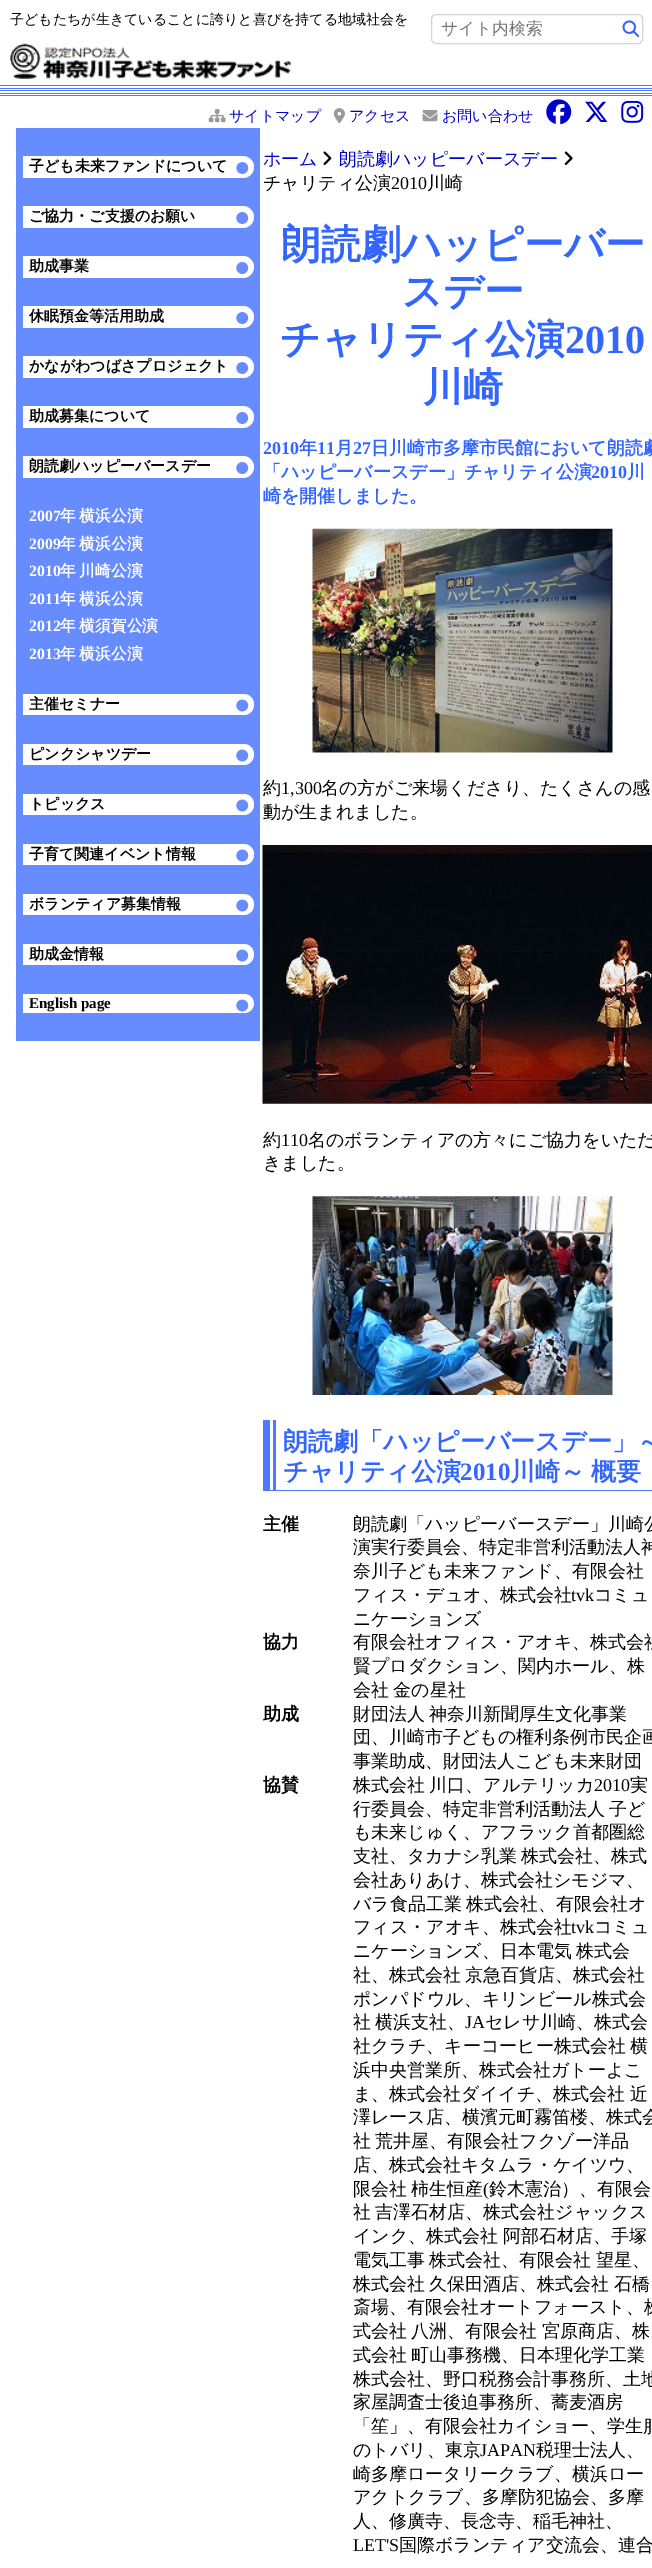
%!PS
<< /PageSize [652 2568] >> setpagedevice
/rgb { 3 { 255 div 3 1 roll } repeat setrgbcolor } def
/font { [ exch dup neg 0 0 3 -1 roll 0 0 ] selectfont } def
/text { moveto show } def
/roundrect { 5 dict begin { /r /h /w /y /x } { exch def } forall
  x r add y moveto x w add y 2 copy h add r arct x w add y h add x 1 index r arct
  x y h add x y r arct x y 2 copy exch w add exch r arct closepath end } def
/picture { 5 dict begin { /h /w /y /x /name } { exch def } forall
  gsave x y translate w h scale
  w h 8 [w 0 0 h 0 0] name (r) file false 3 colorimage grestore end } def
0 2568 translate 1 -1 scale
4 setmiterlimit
255 255 255 rgb
0 0 652 2568 rectfill
211 211 211 rgb
431.5 14.5 211 29 4.5 roundrect stroke
(img_01.rgb) 622 20 18 18 picture
(img_02.rgb) 10 43 282 36 picture
77 121 255 rgb
0 85 652 1 rectfill
0 88 652 1 rectfill
0 90 652 1 rectfill
0 93 652 1 rectfill
0 95 652 1 rectfill
(img_03.rgb) 208 109 18 14 picture
(img_04.rgb) 333 108 12 15 picture
(img_05.rgb) 422 110 16 12 picture
(img_06.rgb) 546 99 26 26 picture
(img_07.rgb) 585 101 23 21 picture
(img_08.rgb) 621 100 23 23 picture
102 140 255 rgb
16 128 244 913 rectfill
255 255 255 rgb
23 156 moveto 220 0 rlineto 6 0 11 5 11 11 rcurveto 0 6 -5 11 -11 11 rcurveto -220 0 rlineto closepath fill
(img_09.rgb) 236 162 13 12 picture
23 206 moveto 220 0 rlineto 6 0 11 5 11 11 rcurveto 0 6 -5 11 -11 11 rcurveto -220 0 rlineto closepath fill
(img_09.rgb) 236 212 13 12 picture
23 256 moveto 220 0 rlineto 6 0 11 5 11 11 rcurveto 0 6 -5 11 -11 11 rcurveto -220 0 rlineto closepath fill
(img_09.rgb) 236 262 13 12 picture
23 306 moveto 220 0 rlineto 6 0 11 5 11 11 rcurveto 0 6 -5 11 -11 11 rcurveto -220 0 rlineto closepath fill
(img_09.rgb) 236 312 13 12 picture
23 356 moveto 220 0 rlineto 6 0 11 5 11 11 rcurveto 0 6 -5 11 -11 11 rcurveto -220 0 rlineto closepath fill
(img_09.rgb) 236 362 13 12 picture
23 406 moveto 220 0 rlineto 6 0 11 5 11 11 rcurveto 0 6 -5 11 -11 11 rcurveto -220 0 rlineto closepath fill
(img_09.rgb) 236 412 13 12 picture
23 456 moveto 220 0 rlineto 6 0 11 5 11 11 rcurveto 0 6 -5 11 -11 11 rcurveto -220 0 rlineto closepath fill
(img_09.rgb) 236 462 13 12 picture
23 694 moveto 220.5 0 rlineto 6 0 10.5 4.5 10.5 10.5 rcurveto 0 6 -4.5 10.5 -10.5 10.5 rcurveto -220.5 0 rlineto closepath fill
(img_10.rgb) 236 699 13 13 picture
23 744 moveto 220.5 0 rlineto 6 0 10.5 4.5 10.5 10.5 rcurveto 0 6 -4.5 10.5 -10.5 10.5 rcurveto -220.5 0 rlineto closepath fill
(img_10.rgb) 236 749 13 13 picture
23 794 moveto 220.5 0 rlineto 6 0 10.5 4.5 10.5 10.5 rcurveto 0 6 -4.5 10.5 -10.5 10.5 rcurveto -220.5 0 rlineto closepath fill
(img_10.rgb) 236 799 13 13 picture
23 844 moveto 220.5 0 rlineto 6 0 10.5 4.5 10.5 10.5 rcurveto 0 6 -4.5 10.5 -10.5 10.5 rcurveto -220.5 0 rlineto closepath fill
(img_10.rgb) 236 849 13 13 picture
23 894 moveto 220.5 0 rlineto 6 0 10.5 4.5 10.5 10.5 rcurveto 0 6 -4.5 10.5 -10.5 10.5 rcurveto -220.5 0 rlineto closepath fill
(img_10.rgb) 236 899 13 13 picture
23 944 moveto 220.5 0 rlineto 6 0 10.5 4.5 10.5 10.5 rcurveto 0 6 -4.5 10.5 -10.5 10.5 rcurveto -220.5 0 rlineto closepath fill
(img_10.rgb) 236 949 13 13 picture
23 994 moveto 221.5 0 rlineto 5 0 9.5 4.5 9.5 9.5 rcurveto 0 5 -4.5 9.5 -9.5 9.5 rcurveto -221.5 0 rlineto closepath fill
(img_11.rgb) 236 999 13 13 picture
(img_12.rgb) 323 151 9 14 picture
(img_13.rgb) 564 151 9 14 picture
(img_14.rgb) 312 528 301 225 picture
(img_15.rgb) 262 845 390 259 picture
(img_16.rgb) 312 1196 301 199 picture
77 121 255 rgb
263 1420 7 71 rectfill
273 1420 3 71 rectfill
270 1490 382 1 rectfill
/WenQuanYiZenHei-Medium 14 font
0 0 0 rgb
(子どもたちが生きていることに誇りと喜びを持てる地域社会を) 10 24 text
/WenQuanYiZenHei-Medium 16.75 font
117 117 117 rgb
(サイト内検索) 441 34 text
/WenQuanYiZenHei-Medium 15 font
0 0 204 rgb
(サイトマップ) 229 121 text
(アクセス) 349 121 text
(お問い合わせ) 442 121 text
/WenQuanYiZenHei-Bold 15 font
0 0 0 rgb
(子ども未来ファンドについて) 29 171 text
(ご協力・ご支援のお願い) 29 221 text
(助成事業) 29 271 text
(休眠預金等活用助成) 29 321 text
(かながわつばさプロジェクト) 29 371 text
(助成募集について) 29 421 text
(朗読劇ハッピーバースデー) 29 471 text
/LiberationSerif-Bold 15.75 font
255 255 255 rgb
(2007) 29 521 text
/WenQuanYiZenHei-Bold 15.75 font
60 521 moveto -1 0 32 (年 横浜公演) widthshow
/LiberationSerif-Bold 15.75 font
(2009) 29 549 text
/WenQuanYiZenHei-Bold 15.75 font
60 549 moveto -1 0 32 (年 横浜公演) widthshow
/LiberationSerif-Bold 15.75 font
(2010) 29 576 text
/WenQuanYiZenHei-Bold 15.75 font
60 576 moveto -1 0 32 (年 川崎公演) widthshow
/LiberationSerif-Bold 15.75 font
(2011) 29 604 text
/WenQuanYiZenHei-Bold 15.75 font
60 604 moveto -1 0 32 (年 横浜公演) widthshow
/LiberationSerif-Bold 15.75 font
(2012) 29 631 text
/WenQuanYiZenHei-Bold 15.75 font
60 631 moveto -1 0 32 (年 横須賀公演) widthshow
/LiberationSerif-Bold 15.75 font
(2013) 29 659 text
/WenQuanYiZenHei-Bold 15.75 font
60 659 moveto -1 0 32 (年 横浜公演) widthshow
/WenQuanYiZenHei-Bold 15 font
0 0 0 rgb
(主催セミナー) 29 709 text
(ピンクシャツデー) 29 759 text
(トピックス) 29 809 text
(子育て関連イベント情報) 29 859 text
(ボランティア募集情報) 29 909 text
(助成金情報) 29 959 text
/LiberationSerif-Bold 15 font
(English page) 29 1008 text
/WenQuanYiZenHei-Medium 18 font
0 0 204 rgb
(ホーム) 263 165 text
(朗読劇ハッピーバースデー) 339 165 text
0 0 0 rgb
(チャリティ公演) 263 189 text
/LiberationSerif-Regular 18 font
(2010) 391 189 text
/WenQuanYiZenHei-Medium 18 font
(川崎) 427 189 text
/WenQuanYiZenHei-Bold 40 font
51 102 255 rgb
(朗読劇ハッピーバー) 281 258 text
(スデー) 402 305 text
(チャリティ公演) 280 353 text
/LiberationSerif-Bold 40 font
(2010) 565 353 text
/WenQuanYiZenHei-Bold 40 font
(川崎) 423 401 text
/LiberationSerif-Bold 18 font
(2010) 263 454 text
/WenQuanYiZenHei-Bold 18 font
(年) 299 454 text
/LiberationSerif-Bold 18 font
(11) 317 454 text
/WenQuanYiZenHei-Bold 18 font
(月) 335 454 text
/LiberationSerif-Bold 18 font
(27) 353 454 text
/WenQuanYiZenHei-Bold 18 font
(日川崎市多摩市民館において朗読劇) 371 454 text
(「ハッピーバースデー」チャリティ公演) 263 478 text
/LiberationSerif-Bold 18 font
(2010) 591 478 text
/WenQuanYiZenHei-Bold 18 font
(川) 627 478 text
(崎を開催しました。) 263 502 text
/WenQuanYiZenHei-Medium 18 font
0 0 0 rgb
(約) 263 794 text
/LiberationSerif-Regular 18 font
(1,300) 281 794 text
/WenQuanYiZenHei-Medium 18 font
(名の方がご来場くださり、たくさんの感) 321 794 text
(動が生まれました。) 263 818 text
(約) 263 1146 text
/LiberationSerif-Regular 18 font
(110) 281 1146 text
/WenQuanYiZenHei-Medium 18 font
(名のボランティアの方々にご協力をいただ) 308 1146 text
(きました。) 263 1169 text
/WenQuanYiZenHei-Bold 25 font
51 102 255 rgb
(朗読劇「ハッピーバースデー」～) 283 1450 text
(チャリティ公演) 283 1480 text
/LiberationSerif-Bold 25 font
(2010) 460 1480 text
/WenQuanYiZenHei-Bold 25 font
510 1480 moveto -1 0 32 (川崎～ 概要) widthshow
/WenQuanYiZenHei-Bold 18 font
0 0 0 rgb
(主催) 263 1530 text
/WenQuanYiZenHei-Medium 18 font
(朗読劇「ハッピーバースデー」川崎公) 353 1530 text
(演実行委員会、特定非営利活動法人神) 353 1553 text
(奈川子ども未来ファンド、有限会社) 353 1577 text
(フィス・デュオ、株式会社) 353 1601 text
/LiberationSerif-Regular 18 font
(tvk) 571 1601 text
/WenQuanYiZenHei-Medium 18 font
(コミュ) 594 1601 text
(ニケーションズ) 353 1625 text
/WenQuanYiZenHei-Bold 18 font
(協力) 263 1648 text
/WenQuanYiZenHei-Medium 18 font
(有限会社オフィス・アオキ、株式会社) 353 1648 text
(賢プロダクション、関内ホール、株) 353 1672 text
353 1696 moveto -1 0 32 (会社 金の星社) widthshow
/WenQuanYiZenHei-Bold 18 font
(助成) 263 1720 text
/WenQuanYiZenHei-Medium 18 font
353 1720 moveto -1 0 32 (財団法人 神奈川新聞厚生文化事業) widthshow
(団、川崎市子どもの権利条例市民企画) 353 1743 text
(事業助成、財団法人こども未来財団) 353 1767 text
/WenQuanYiZenHei-Bold 18 font
(協賛) 263 1791 text
/WenQuanYiZenHei-Medium 18 font
353 1791 moveto -1 0 32 (株式会社 川口、アルテリッカ) widthshow
/LiberationSerif-Regular 18 font
(2010) 594 1791 text
/WenQuanYiZenHei-Medium 18 font
(実) 630 1791 text
353 1815 moveto -1 0 32 (行委員会、特定非営利活動法人 子ど) widthshow
(も未来じゅく、アフラック首都圏総) 353 1838 text
353 1862 moveto -1 0 32 (支社、タカナシ乳業 株式会社、株式) widthshow
(会社ありあけ、株式会社シモジマ、) 353 1886 text
353 1910 moveto -1 0 32 (バラ食品工業 株式会社、有限会社オ) widthshow
(フィス・アオキ、株式会社) 353 1933 text
/LiberationSerif-Regular 18 font
(tvk) 571 1933 text
/WenQuanYiZenHei-Medium 18 font
(コミュ) 594 1933 text
353 1957 moveto -1 0 32 (ニケーションズ、日本電気 株式会) widthshow
353 1981 moveto -1 0 32 (社、株式会社 京急百貨店、株式会社) widthshow
(ポンパドウル、キリンビール株式会) 353 2005 text
353 2028 moveto -1 0 32 (社 横浜支社、) widthshow
/LiberationSerif-Regular 18 font
(JA) 465 2028 text
/WenQuanYiZenHei-Medium 18 font
(セレサ川崎、株式会) 485 2028 text
353 2052 moveto -1 0 32 (社クラチ、キーコーヒー株式会社 横) widthshow
(浜中央営業所、株式会社ガトーよこ) 353 2076 text
353 2100 moveto -1 0 32 (ま、株式会社ダイイチ、株式会社 近) widthshow
(澤レース店、横濱元町霧笛楼、株式会) 353 2123 text
353 2147 moveto -1 0 32 (社 荒井屋、有限会社フクゾー洋品) widthshow
(店、株式会社キタムラ・ケイツウ、) 353 2171 text
353 2195 moveto -1 0 32 (限会社 柿生恒産) widthshow
/LiberationSerif-Regular 18 font
(\() 483 2195 text
/WenQuanYiZenHei-Medium 18 font
(鈴木憲治）、有限会) 489 2195 text
353 2218 moveto -1 0 32 (社 吉澤石材店、株式会社ジャックス) widthshow
353 2242 moveto -1 0 32 (インク、株式会社 阿部石材店、手塚) widthshow
353 2266 moveto -1 0 32 (電気工事 株式会社、有限会社 望星、) widthshow
353 2290 moveto -1 0 32 (株式会社 久保田酒店、株式会社 石橋) widthshow
(斎場、有限会社オートフォースト、株) 353 2313 text
353 2337 moveto -1 0 32 (式会社 八洲、有限会社 宮原商店、株) widthshow
353 2361 moveto -1 0 32 (式会社 町山事務機、日本理化学工業) widthshow
(株式会社、野口税務会計事務所、土地) 353 2385 text
(家屋調査士後迫事務所、蕎麦酒房) 353 2408 text
(「笙」、有限会社カイショー、学生服) 353 2432 text
(のトバリ、東京) 353 2456 text
/LiberationSerif-Regular 18 font
(JAPAN) 480 2456 text
/WenQuanYiZenHei-Medium 18 font
(税理士法人、) 536 2456 text
(崎多摩ロータリークラブ、横浜ロー) 353 2480 text
(アクトクラブ、多摩防犯協会、多摩) 353 2503 text
(人、修廣寺、長念寺、稲毛神社、) 353 2527 text
/LiberationSerif-Regular 18 font
(LET'S) 353 2551 text
/WenQuanYiZenHei-Medium 18 font
(国際ボランティア交流会、連合) 399 2551 text
showpage
